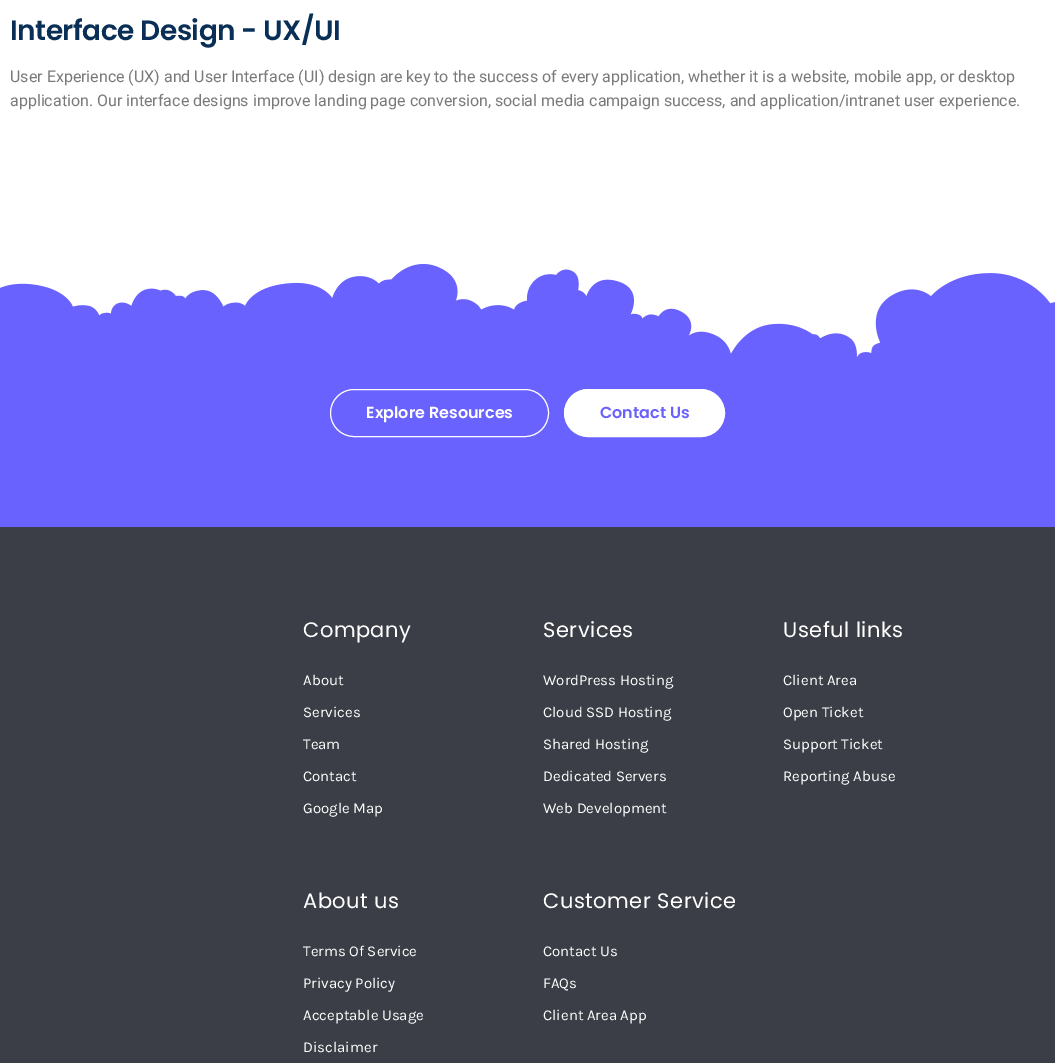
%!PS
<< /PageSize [1055 1063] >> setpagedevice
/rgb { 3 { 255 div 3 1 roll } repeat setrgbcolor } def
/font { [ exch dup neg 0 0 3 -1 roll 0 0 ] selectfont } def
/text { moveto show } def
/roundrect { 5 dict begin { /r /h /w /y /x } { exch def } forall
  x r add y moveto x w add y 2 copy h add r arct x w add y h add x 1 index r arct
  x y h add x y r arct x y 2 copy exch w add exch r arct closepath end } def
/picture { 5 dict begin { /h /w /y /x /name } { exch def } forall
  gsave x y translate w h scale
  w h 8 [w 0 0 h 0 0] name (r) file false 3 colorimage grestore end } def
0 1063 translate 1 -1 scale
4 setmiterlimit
255 255 255 rgb
0 0 1055 1063 rectfill
106 98 254 rgb
0 264 1055 263 rectfill
(img_01.rgb) 0 264 1055 94 picture
255 255 255 rgb
330.5 389.5 218 47 23.5 roundrect stroke
564.5 389.5 160 47 23.5 roundrect gsave fill grestore
stroke
59 62 70 rgb
0 527 1055 536 rectfill
/Poppins-SemiBold 28 font
9 47 87 rgb
10 40 moveto -0.5 0 (Interface Design - UX/UI) ashow
/Roboto-Regular 16 font
122 122 122 rgb
(User Experience \(UX\) and User Interface \(UI\) design are key to the success of every application, whether it is a website, mobile app, or desktop) 10 82 text
(application. Our interface designs improve landing page conversion, social media campaign success, and application/intranet user experience.) 10 106 text
/Poppins-SemiBold 16 font
255 255 255 rgb
(Explore Resources) 366 418 text
106 98 254 rgb
(Contact Us) 600 418 text
/Poppins-Regular 21 font
255 255 255 rgb
303 637 moveto 0.5 0 (Company) ashow
/Karla-Regular 15 font
(About) 303 685 text
(Services) 303 717 text
(Team) 303 749 text
(Contact) 303 781 text
(Google Map) 303 813 text
/Poppins-Regular 21 font
303 908 moveto 0.5 0 (About us) ashow
/Karla-Regular 15 font
(Terms Of Service) 303 956 text
(Privacy Policy) 303 988 text
(Acceptable Usage) 303 1020 text
(Disclaimer) 303 1052 text
/Poppins-Regular 21 font
543 637 moveto 0.5 0 (Services) ashow
/Karla-Regular 15 font
(WordPress Hosting) 543 685 text
(Cloud SSD Hosting) 543 717 text
(Shared Hosting) 543 749 text
(Dedicated Servers) 543 781 text
(Web Development) 543 813 text
/Poppins-Regular 21 font
543 908 moveto 0.5 0 (Customer Service) ashow
/Karla-Regular 15 font
(Contact Us) 543 956 text
(FAQs) 543 988 text
(Client Area App) 543 1020 text
/Poppins-Regular 21 font
783 637 moveto 0.5 0 (Useful links) ashow
/Karla-Regular 15 font
(Client Area) 783 685 text
(Open Ticket) 783 717 text
(Support Ticket) 783 749 text
(Reporting Abuse) 783 781 text
showpage
